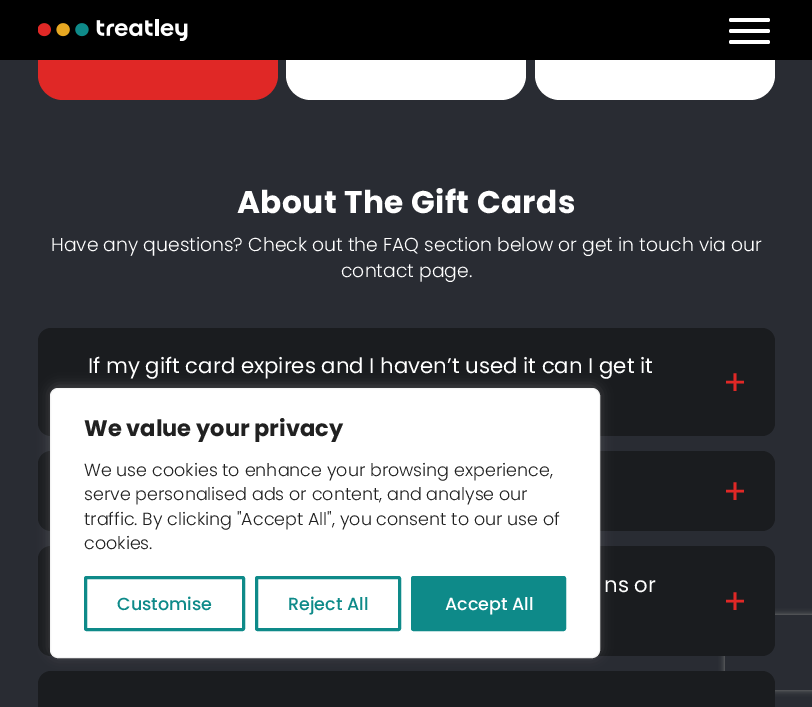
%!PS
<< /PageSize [812 707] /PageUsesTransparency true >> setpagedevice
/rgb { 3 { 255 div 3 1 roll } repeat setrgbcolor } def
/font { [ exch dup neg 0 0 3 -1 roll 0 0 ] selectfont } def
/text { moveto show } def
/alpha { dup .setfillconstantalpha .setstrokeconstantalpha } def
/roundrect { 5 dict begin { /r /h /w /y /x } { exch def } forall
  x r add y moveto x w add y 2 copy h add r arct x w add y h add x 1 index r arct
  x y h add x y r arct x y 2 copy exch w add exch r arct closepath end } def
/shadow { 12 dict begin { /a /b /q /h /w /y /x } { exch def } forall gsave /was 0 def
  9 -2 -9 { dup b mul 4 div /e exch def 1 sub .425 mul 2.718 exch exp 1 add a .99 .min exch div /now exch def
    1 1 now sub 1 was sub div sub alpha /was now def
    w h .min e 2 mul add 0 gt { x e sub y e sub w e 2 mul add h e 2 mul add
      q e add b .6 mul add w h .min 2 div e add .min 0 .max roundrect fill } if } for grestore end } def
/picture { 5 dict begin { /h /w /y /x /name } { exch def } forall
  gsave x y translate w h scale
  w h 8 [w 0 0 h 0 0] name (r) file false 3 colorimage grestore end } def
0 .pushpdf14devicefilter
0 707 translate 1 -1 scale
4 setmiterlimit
41 44 51 rgb
0 0 812 707 rectfill
224 40 38 rgb
38 -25 240 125 25 roundrect fill
255 255 255 rgb
286 -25 240 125 25 roundrect fill
535 -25 240 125 25 roundrect fill
0 0 0 rgb
0 0 812 60 rectfill
(img_01.rgb) 38 19 150 22 picture
255 255 255 rgb
729 18 41 4 2 roundrect fill
729 29 41 4 2 roundrect fill
729 40 41 4 2 roundrect fill
26 28 31 rgb
38 328 737 108 13 roundrect fill
38 451 737 80 13 roundrect fill
gsave
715 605 moveto 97 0 rlineto 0 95 rlineto -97 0 rlineto closepath 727.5 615 moveto 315 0 rlineto 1.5 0 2.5 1 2.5 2.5 rcurveto 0 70 rlineto 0 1.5 -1 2.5 -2.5 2.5 rcurveto -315 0 rlineto -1.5 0 -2.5 -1 -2.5 -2.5 rcurveto 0 -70 rlineto 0 -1.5 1 -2.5 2.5 -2.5 rcurveto closepath eoclip newpath
128 128 128 rgb
725 615 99 75 2.5 3 1 shadow
grestore
38 546 737 110 13 roundrect fill
38 671 737 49 13 roundrect fill
172 171 171 rgb
50 386 550 270 8 6 0.3 shadow
255 255 255 rgb
50.5 388.5 549 269 7.5 roundrect gsave fill grestore
244 244 244 rgb
stroke
14 138 137 rgb
3 setlinewidth
85.5 577.5 158 52 1 roundrect stroke
256.5 577.5 143 52 1 roundrect stroke
412.5 577.5 152 52 1 roundrect gsave fill grestore
stroke
/Poppins-Bold 31.25 font
255 255 255 rgb
237 213 moveto 0.4 0 (About The Gift Cards) ashow
/Poppins-Light 18.75 font
(Have any questions? Check out the FAQ section below or get in touch via our) 51 251 text
(contact page.) 341 277 text
/Poppins-Regular 21.25 font
(If my gift card expires and I haven’t used it can I get it) 88 373 text
/Poppins-Regular 35 font
224 40 38 rgb
(+) 723 395 text
(+) 723 504 text
/Poppins-Regular 21.25 font
255 255 255 rgb
(ns or) 604 592 text
/Poppins-Regular 35 font
224 40 38 rgb
(+) 723 614 text
/Poppins-Bold 22.5 font
33 33 33 rgb
(We value your privacy) 84 436 text
/Poppins-Light 17.5 font
(We use cookies to enhance your browsing experience,) 84 476 text
(serve personalised ads or content, and analyse our) 84 500 text
(traffic. By clicking "Accept All", you consent to our use of) 84 525 text
(cookies.) 84 549 text
/Poppins-Medium 17.5 font
14 138 137 rgb
(Customise) 117 610 text
(Reject All) 288 610 text
255 255 255 rgb
(Accept All) 445 610 text
.poppdf14devicefilter showpage
